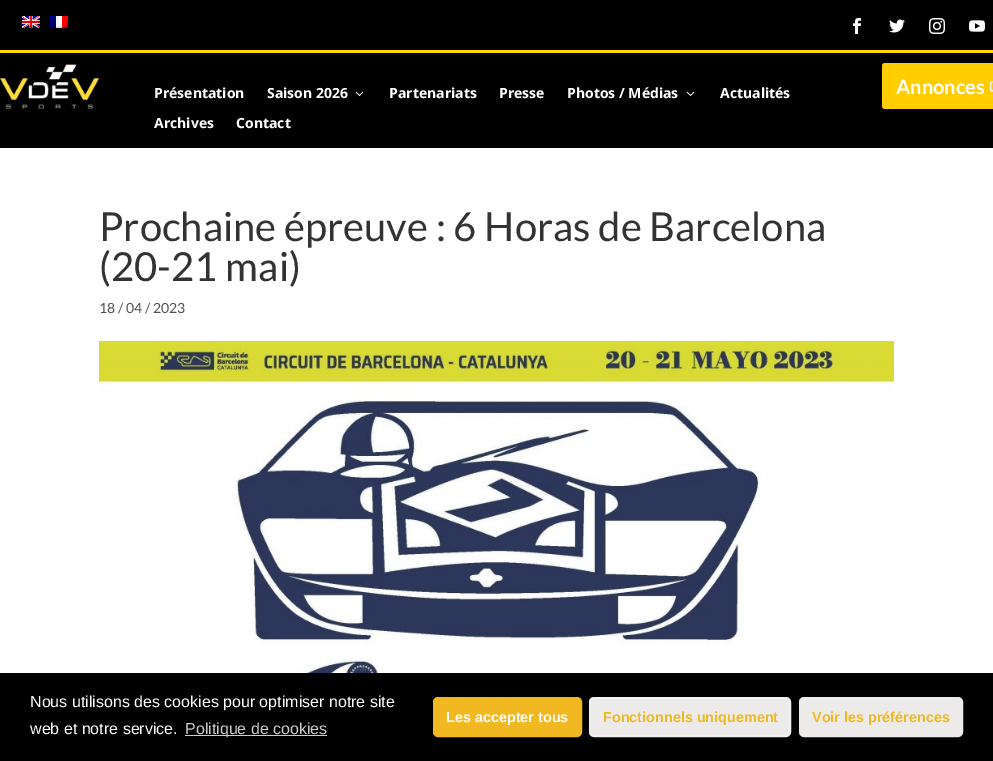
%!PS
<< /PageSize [993 761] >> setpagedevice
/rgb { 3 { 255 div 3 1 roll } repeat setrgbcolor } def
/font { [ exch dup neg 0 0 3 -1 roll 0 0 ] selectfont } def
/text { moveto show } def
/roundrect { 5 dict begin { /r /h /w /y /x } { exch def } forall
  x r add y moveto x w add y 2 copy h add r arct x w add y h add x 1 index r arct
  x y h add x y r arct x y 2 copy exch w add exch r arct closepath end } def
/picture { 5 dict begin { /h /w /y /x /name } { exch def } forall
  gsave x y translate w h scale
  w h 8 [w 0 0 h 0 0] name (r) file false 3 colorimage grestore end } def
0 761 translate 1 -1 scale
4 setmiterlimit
255 255 255 rgb
0 0 993 761 rectfill
0 0 0 rgb
0 0 993 148 rectfill
255 216 0 rgb
0 50 993 3 rectfill
(img_01.rgb) 22 16 18 12 picture
(img_02.rgb) 50 16 18 12 picture
(img_03.rgb) 853 18 8 16 picture
(img_04.rgb) 889 19 16 14 picture
(img_05.rgb) 929 18 16 16 picture
(img_06.rgb) 969 20 16 12 picture
(img_07.rgb) 0 64 99 45 picture
(img_08.rgb) 355 91 9 5 picture
(img_08.rgb) 686 91 9 5 picture
255 205 0 rgb
882 63 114 46 3 roundrect fill
(img_09.rgb) 990 81 3 11 picture
(img_10.rgb) 99 341 795 332 picture
0 0 0 rgb
0 673 993 88 rectfill
204 204 204 rgb
185 735 142 1 rectfill
241 184 34 rgb
434 698 147 38 4 roundrect gsave fill grestore
2 setlinewidth
stroke
237 235 234 rgb
590 698 200 38 4 roundrect gsave fill grestore
241 241 241 rgb
stroke
237 235 234 rgb
800 698 162 38 4 roundrect gsave fill grestore
stroke
/OpenSans-Bold 14 font
255 255 255 rgb
(Présentation) 154 98 text
(Saison 2026) 267 98 text
(Partenariats) 389 98 text
(Presse) 499 98 text
(Photos / Médias) 567 98 text
(Actualités) 720 98 text
(Archives) 154 128 text
(Contact) 236 128 text
/Lato-Bold 20 font
(Annonces) 896 94 text
/Lato-Regular 40 font
51 51 51 rgb
(Prochaine épreuve : 6 Horas de Barcelona) 99 241 text
(\(20-21 mai\)) 99 281 text
/Lato-Regular 14 font
81 81 81 rgb
(18 / 04 / 2023) 99 313 text
/LiberationSans-Regular 16 font
255 255 255 rgb
(Nous utilisons des cookies pour optimiser notre site) 30 707 text
(web et notre service.) 30 734 text
204 204 204 rgb
(Politique de cookies) 185 734 text
/LiberationSans-Bold 14.4 font
255 255 255 rgb
(Les accepter tous) 446 722 text
241 184 34 rgb
(Fonctionnels uniquement) 603 722 text
(Voir les préférences) 812 722 text
showpage
